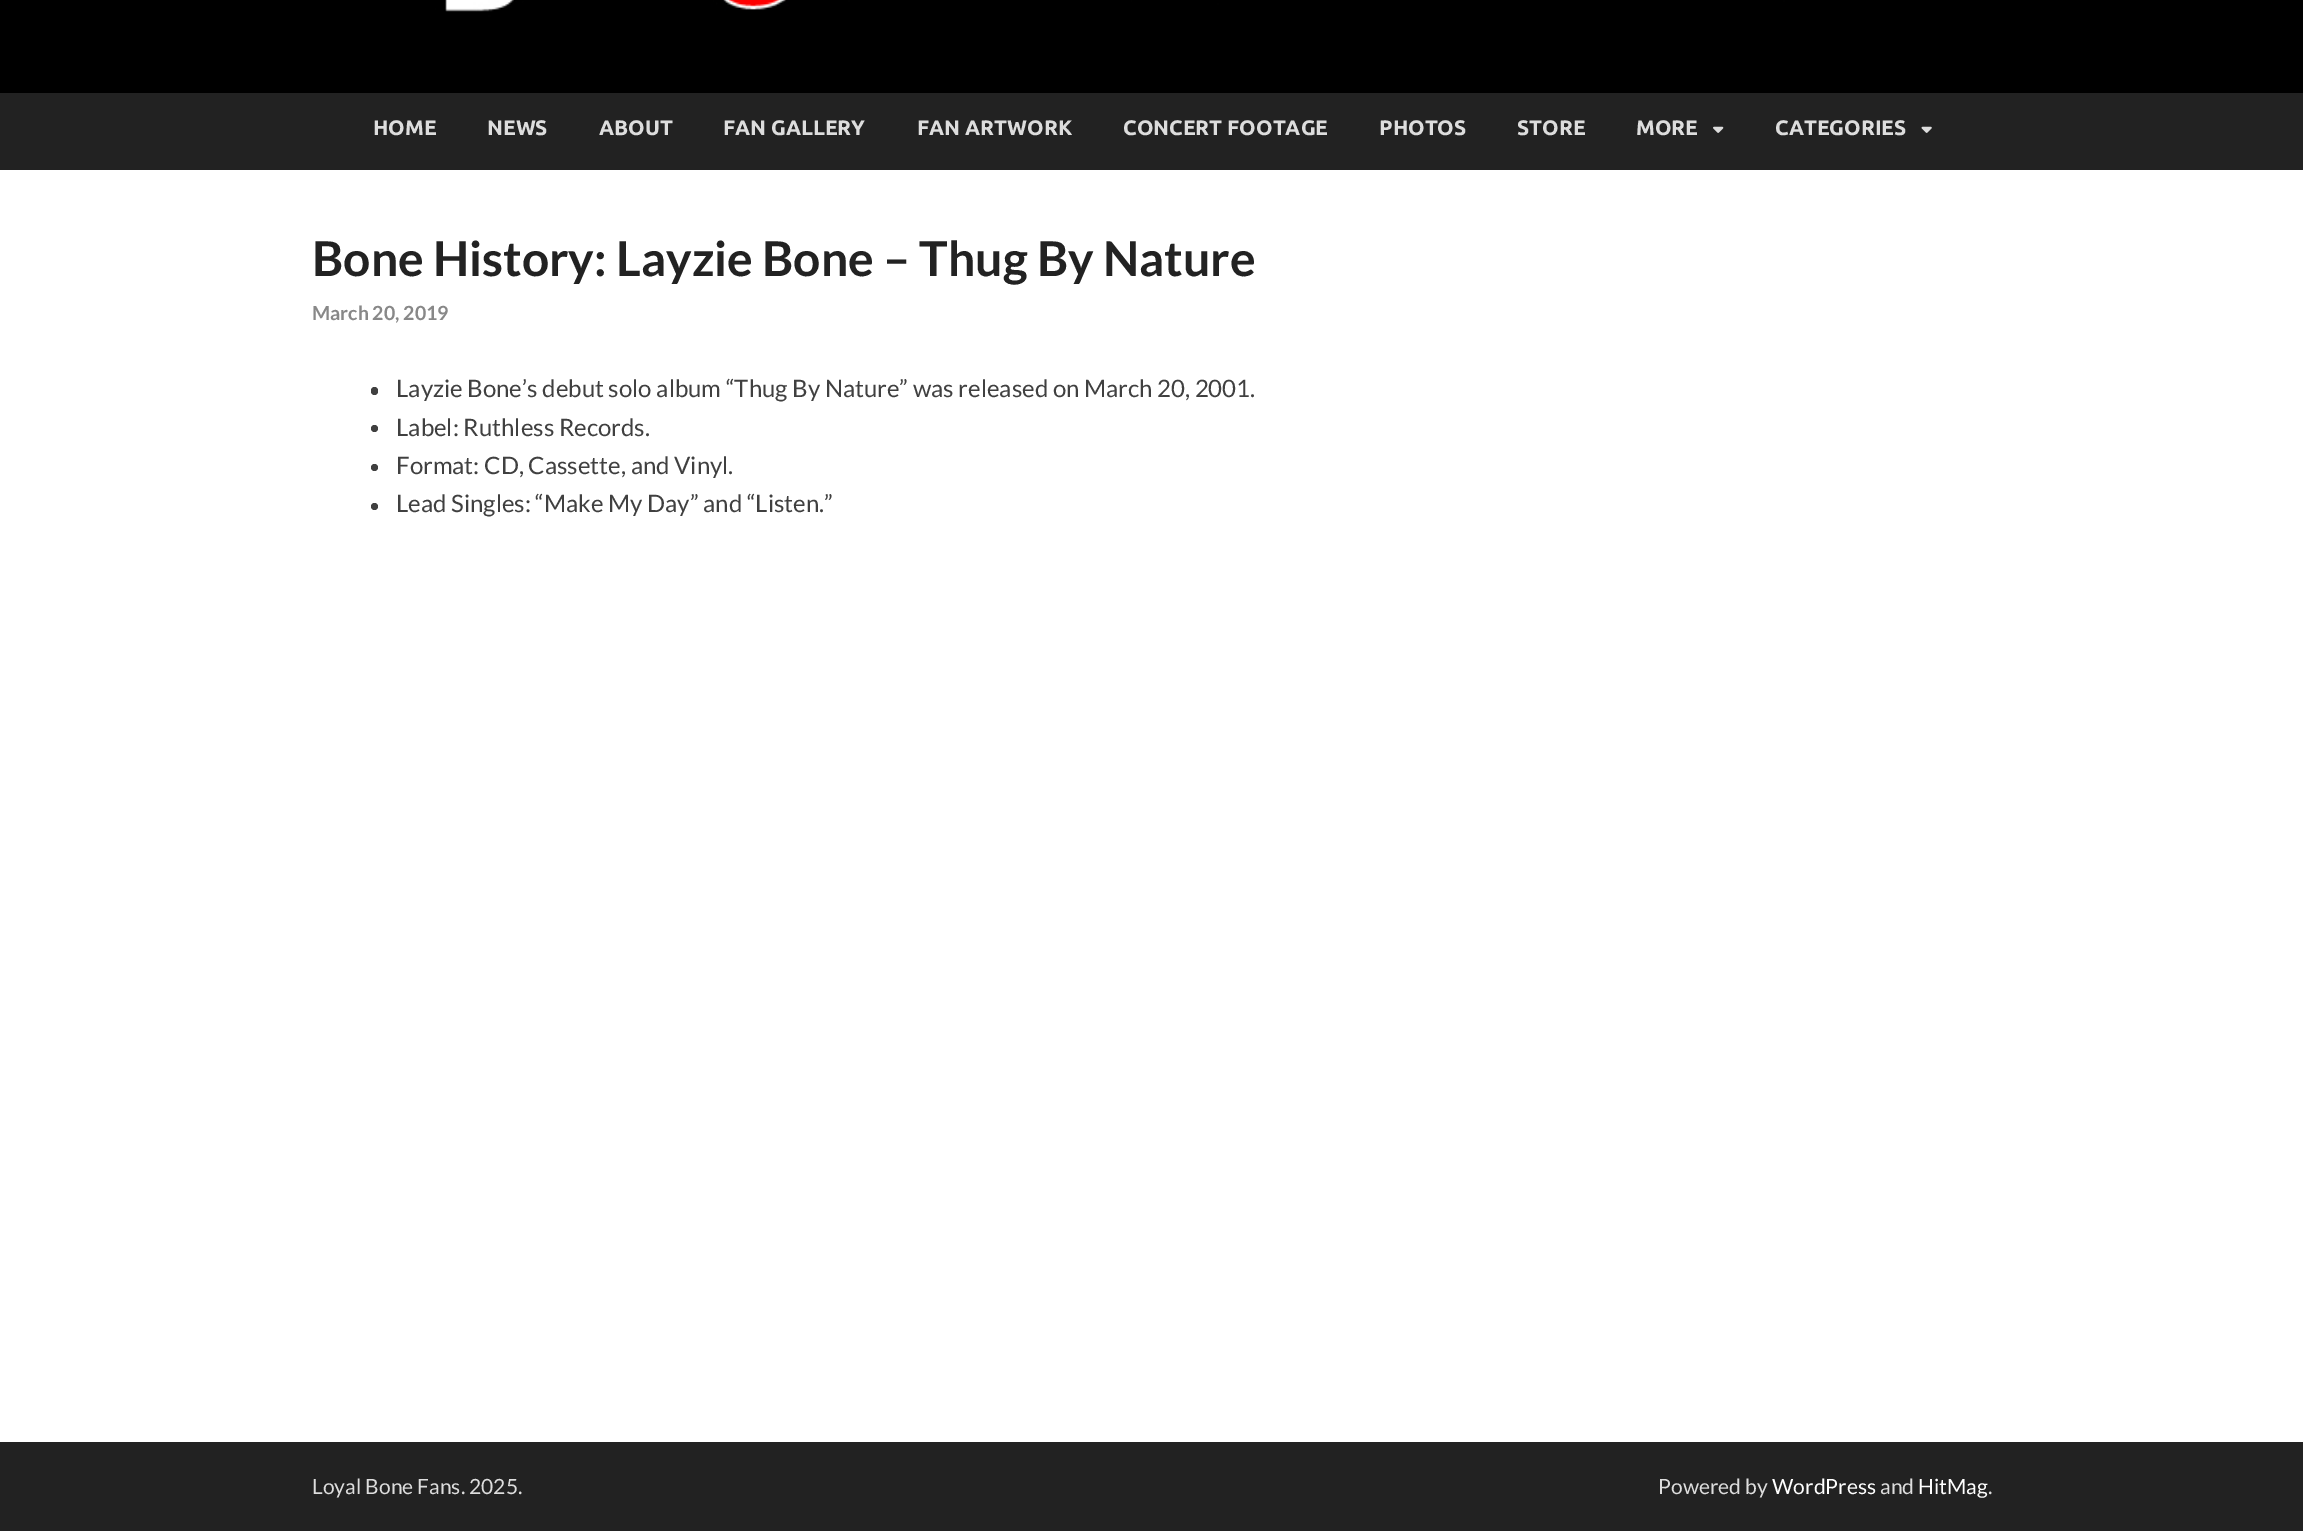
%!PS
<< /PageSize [2303 1531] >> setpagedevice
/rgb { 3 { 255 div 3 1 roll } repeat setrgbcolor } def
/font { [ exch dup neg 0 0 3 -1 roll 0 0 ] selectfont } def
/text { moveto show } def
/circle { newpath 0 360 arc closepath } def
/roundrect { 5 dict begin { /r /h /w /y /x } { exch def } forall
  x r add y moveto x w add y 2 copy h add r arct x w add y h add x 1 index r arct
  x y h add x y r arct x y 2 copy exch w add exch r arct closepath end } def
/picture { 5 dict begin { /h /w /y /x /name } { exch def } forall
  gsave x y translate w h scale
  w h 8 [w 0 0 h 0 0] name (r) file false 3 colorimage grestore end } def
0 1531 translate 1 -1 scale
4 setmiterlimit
255 255 255 rgb
0 0 2303 1531 rectfill
(img_01.rgb) 0 0 2303 93 picture
34 34 34 rgb
0 93 2303 77 rectfill
(img_02.rgb) 1713 126 11 7 picture
(img_03.rgb) 1921 126 11 7 picture
64 64 64 rgb
371 387 7 8 3.5 roundrect fill
374.5 428.5 3.5 circle fill
374.5 467.5 3.5 circle fill
374.5 506.5 3.5 circle fill
34 34 34 rgb
0 1442 2303 89 rectfill
/Ubuntu-Bold 21 font
221 221 221 rgb
(HOME) 373 135 text
(NEWS) 487 135 text
(ABOUT) 599 135 text
(FAN GALLERY) 723 135 text
(FAN ARTWORK) 917 135 text
(CONCERT FOOTAGE) 1123 135 text
(PHOTOS) 1379 135 text
(STORE) 1517 135 text
(MORE) 1636 135 text
(CATEGORIES) 1775 135 text
/Lato-Bold 48 font
34 34 34 rgb
(Bone History: Layzie Bone – Thug By Nature) 312 276 text
/Lato-Bold 19.5 font
136 136 136 rgb
(March 20, 2019) 312 320 text
/Lato-Regular 24 font
64 64 64 rgb
(Layzie Bone’s debut solo album “Thug By Nature” was released on March 20, 2001.) 396 397 text
(Label: Ruthless Records.) 396 436 text
(Format: CD, Cassette, and Vinyl.) 396 474 text
(Lead Singles: “Make My Day” and “Listen.”) 396 512 text
/Lato-Regular 21 font
221 221 221 rgb
(Loyal Bone Fans. 2025.) 312 1494 text
(Powered by) 1658 1494 text
255 255 255 rgb
(WordPress) 1772 1494 text
221 221 221 rgb
(and) 1880 1494 text
255 255 255 rgb
(HitMag) 1918 1494 text
221 221 221 rgb
(.) 1988 1494 text
showpage
